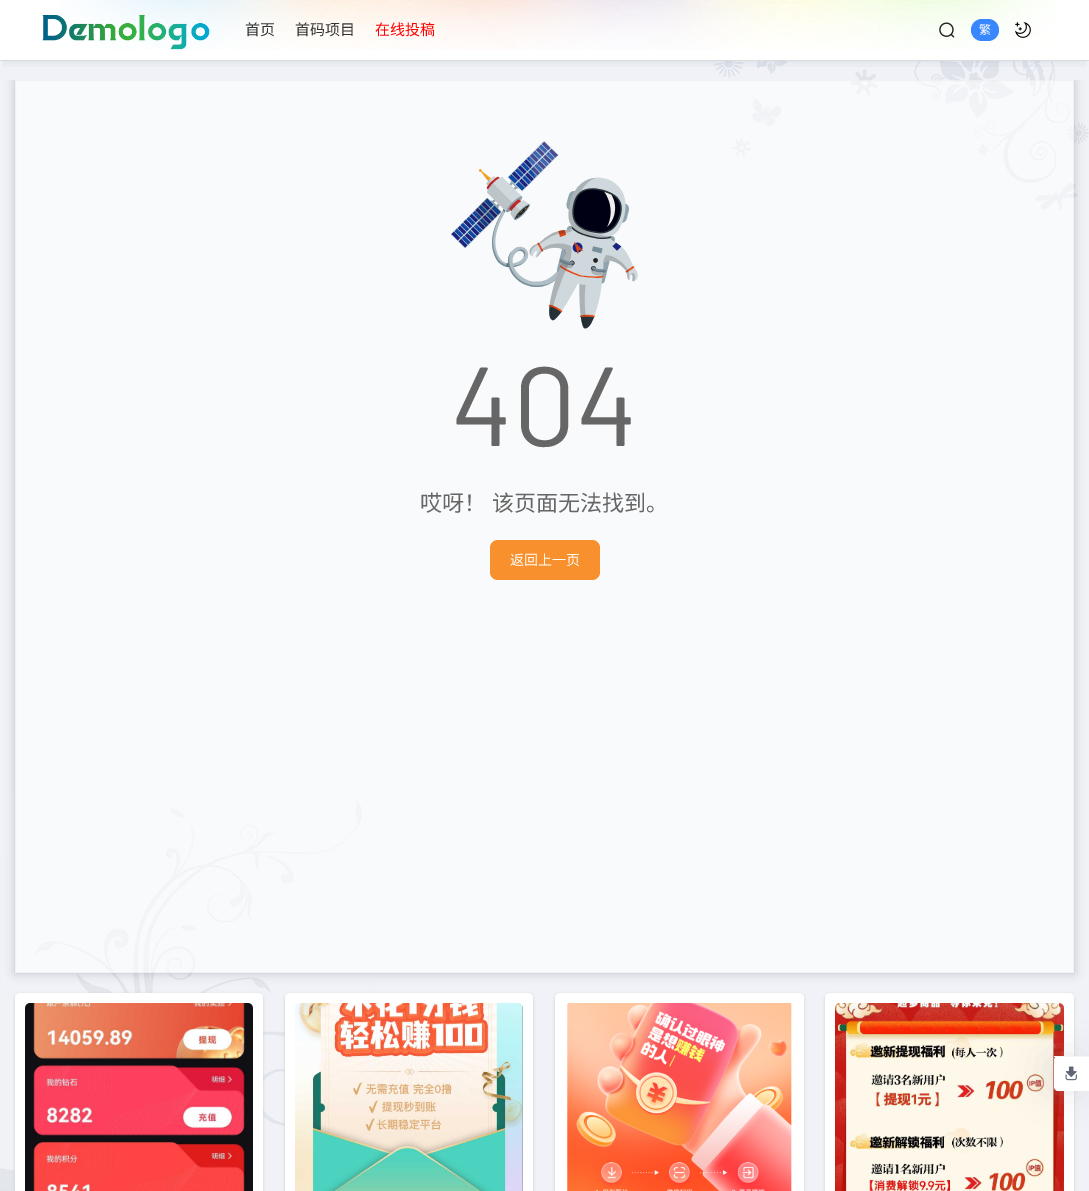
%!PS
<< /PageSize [1089 1191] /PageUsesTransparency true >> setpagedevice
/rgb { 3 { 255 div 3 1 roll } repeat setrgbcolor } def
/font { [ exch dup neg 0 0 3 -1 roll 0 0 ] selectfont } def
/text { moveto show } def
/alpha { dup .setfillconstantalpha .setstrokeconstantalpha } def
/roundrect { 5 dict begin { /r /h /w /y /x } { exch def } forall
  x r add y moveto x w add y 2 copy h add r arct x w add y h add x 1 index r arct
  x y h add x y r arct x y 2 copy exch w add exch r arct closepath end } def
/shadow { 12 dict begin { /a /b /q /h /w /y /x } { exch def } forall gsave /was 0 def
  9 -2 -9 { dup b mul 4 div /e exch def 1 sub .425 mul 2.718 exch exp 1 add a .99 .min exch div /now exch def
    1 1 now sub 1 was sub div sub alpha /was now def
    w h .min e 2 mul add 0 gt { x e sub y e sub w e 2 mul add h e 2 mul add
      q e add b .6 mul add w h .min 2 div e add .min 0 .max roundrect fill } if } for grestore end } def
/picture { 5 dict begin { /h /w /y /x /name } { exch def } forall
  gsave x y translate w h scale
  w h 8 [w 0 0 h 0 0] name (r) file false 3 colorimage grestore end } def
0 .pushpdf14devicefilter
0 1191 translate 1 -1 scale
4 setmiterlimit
240 242 247 rgb
0 0 1089 1191 rectfill
(img_01.rgb) 0 61 1089 1130 picture
255 255 255 rgb
0 0 1089 59 rectfill
220 220 220 rgb
0 59 1089 1 rectfill
gsave
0 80 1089 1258 rectclip
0 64 moveto 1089 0 rlineto 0 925 rlineto -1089 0 rlineto closepath 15 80 moveto 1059 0 rlineto 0 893 rlineto -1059 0 rlineto closepath eoclip newpath
0 0 0 rgb
15 80 1059 893 0 5 0.2 shadow
grestore
0.58 alpha
255 255 255 rgb
15 80 1059 893 rectfill
0.28 alpha
221 221 221 rgb
15.5 80.5 1058 892 rectstroke
gsave
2 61 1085 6 rectclip
1 alpha
17 58 93 rgb
3 6 1083 55 0 7.5 0.1 shadow
grestore
0.98 alpha
255 255 255 rgb
0 59 1089 1 rectfill
1 alpha
(img_02.rgb) 61 0 996 50 picture
219 219 219 rgb
0 60 1089 1 rectfill
(img_03.rgb) 42 15 168 35 picture
(img_04.rgb) 939 22 16 16 picture
57 135 254 rgb
971 19 28 22 11 roundrect fill
(img_05.rgb) 1015 22 16 16 picture
(img_06.rgb) 451 141 187 188 picture
248 145 45 rgb
490 540 110 40 8 roundrect fill
206 206 206 rgb
15 994 248 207 5 1.5 1 shadow
255 255 255 rgb
15 993 248 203 5 roundrect fill
(img_07.rgb) 25 1003 228 188 picture
206 206 206 rgb
285 994 248 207 5 1.5 1 shadow
255 255 255 rgb
285 993 248 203 5 roundrect fill
(img_08.rgb) 295 1003 228 188 picture
206 206 206 rgb
555 994 249 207 5 1.5 1 shadow
255 255 255 rgb
555 993 249 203 5 roundrect fill
(img_09.rgb) 567 1003 225 188 picture
206 206 206 rgb
825 994 249 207 5 1.5 1 shadow
255 255 255 rgb
825 993 249 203 5 roundrect fill
(img_10.rgb) 835 1003 229 188 picture
181 181 181 rgb
1046 1056 35 35 4 17.5 0.32 shadow
255 255 255 rgb
1058 1056 moveto 31 0 rlineto 0 35 rlineto -31 0 rlineto -2 0 -4 -2 -4 -4 rcurveto 0 -27 rlineto 0 -2 2 -4 4 -4 rcurveto closepath fill
245 246 247 rgb
1054 1056 35 1 rectfill
(img_11.rgb) 1065 1066 12 15 picture
/NotoSansCJKSC-Regular 15 font
51 51 51 rgb
(首页) 245 35 text
(首码项目) 295 35 text
255 0 0 rgb
(在线投稿) 375 35 text
/NotoSansCJKSC-Regular 12 font
255 255 255 rgb
(繁) 979 34 text
/Barlow-Regular 112 font
102 102 102 rgb
(404) 451 446 text
/NotoSansCJKSC-Regular 22 font
420 511 moveto 1 0 32 (哎呀！ 该页面无法找到。) widthshow
/NotoSansCJKSC-Regular 14 font
255 255 255 rgb
(返回上一页) 510 565 text
.poppdf14devicefilter showpage
